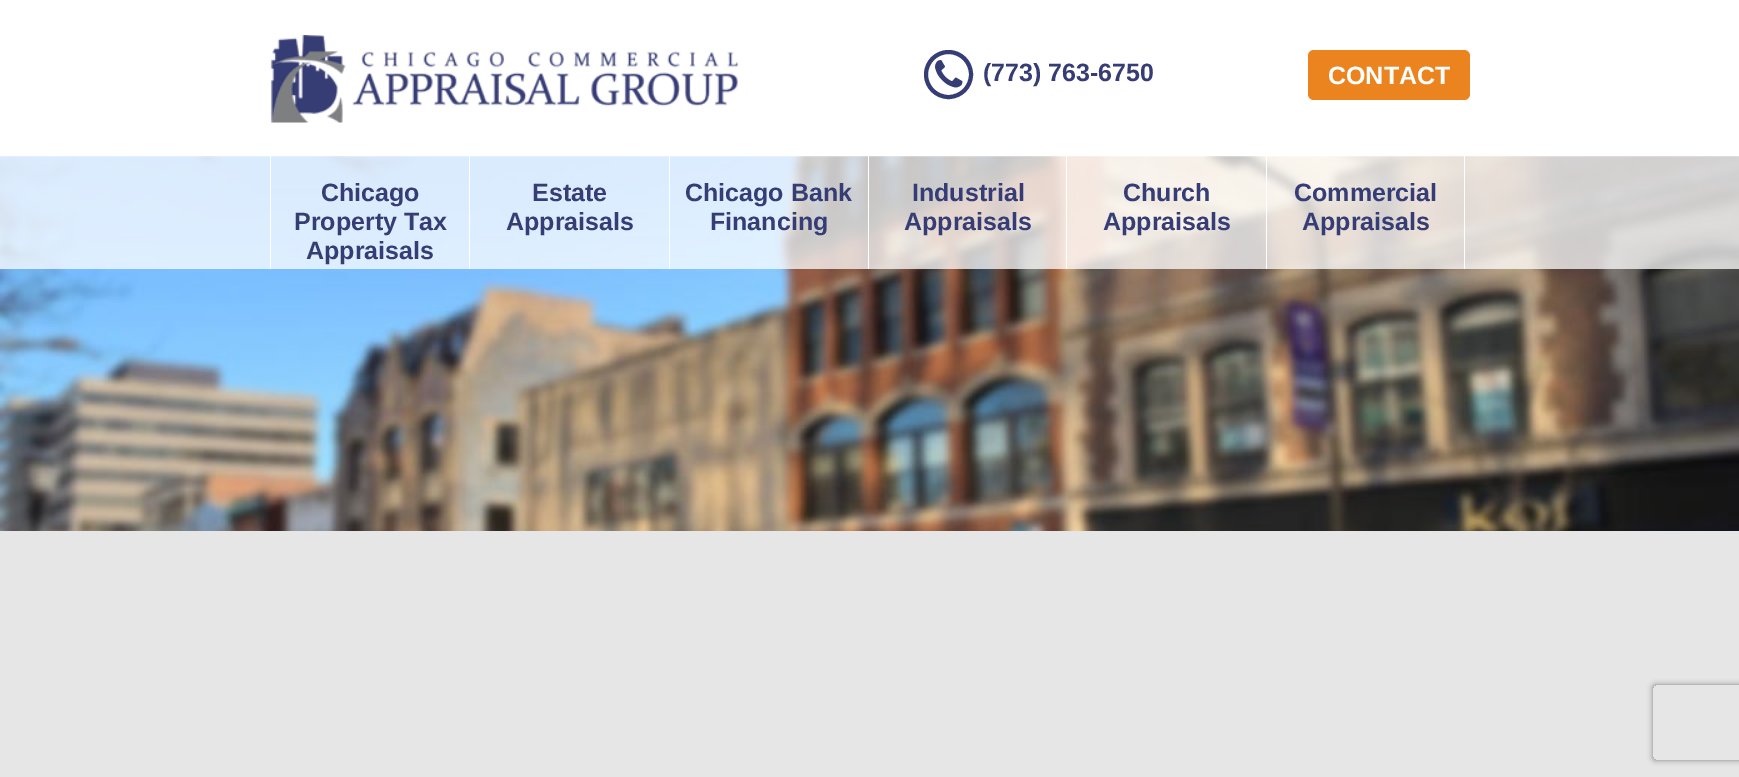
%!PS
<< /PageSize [1739 777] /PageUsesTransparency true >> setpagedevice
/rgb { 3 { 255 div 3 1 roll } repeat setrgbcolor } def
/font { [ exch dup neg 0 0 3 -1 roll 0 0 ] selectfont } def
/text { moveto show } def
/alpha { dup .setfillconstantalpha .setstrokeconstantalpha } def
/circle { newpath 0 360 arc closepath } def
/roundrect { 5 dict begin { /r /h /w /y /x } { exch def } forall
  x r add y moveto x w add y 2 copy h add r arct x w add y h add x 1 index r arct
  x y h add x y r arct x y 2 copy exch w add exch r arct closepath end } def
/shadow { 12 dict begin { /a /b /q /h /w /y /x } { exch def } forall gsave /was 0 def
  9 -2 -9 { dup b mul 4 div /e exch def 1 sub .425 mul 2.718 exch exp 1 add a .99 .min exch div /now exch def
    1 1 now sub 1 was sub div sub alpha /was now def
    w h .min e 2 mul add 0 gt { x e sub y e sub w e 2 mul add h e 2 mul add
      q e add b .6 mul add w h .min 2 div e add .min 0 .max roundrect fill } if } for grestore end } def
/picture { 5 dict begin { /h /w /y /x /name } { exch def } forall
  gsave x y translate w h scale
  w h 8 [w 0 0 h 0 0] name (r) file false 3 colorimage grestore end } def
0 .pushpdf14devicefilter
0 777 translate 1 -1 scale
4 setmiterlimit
255 255 255 rgb
0 0 1739 777 rectfill
(img_01.rgb) 270 35 468 88 picture
54 60 116 rgb
4 setlinewidth
948.5 74.5 22.5 circle stroke
(img_02.rgb) 935 60 28 28 picture
235 132 31 rgb
1308 50 162 50 6 roundrect fill
(img_03.rgb) 0 156 1739 375 picture
0.75 alpha
255 255 255 rgb
0 156 1739 113 rectfill
1 alpha
270 156 1 113 rectfill
469 156 1 113 rectfill
669 156 1 113 rectfill
868 156 1 113 rectfill
1066 156 1 113 rectfill
1464 156 1 113 rectfill
1266 156 1 113 rectfill
230 230 230 rgb
0 531 1739 246 rectfill
gsave
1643 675 moveto 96 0 rlineto 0 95 rlineto -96 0 rlineto closepath 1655.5 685 moveto 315 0 rlineto 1.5 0 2.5 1 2.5 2.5 rcurveto 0 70 rlineto 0 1.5 -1 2.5 -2.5 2.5 rcurveto -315 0 rlineto -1.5 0 -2.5 -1 -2.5 -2.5 rcurveto 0 -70 rlineto 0 -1.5 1 -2.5 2.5 -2.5 rcurveto closepath eoclip newpath
128 128 128 rgb
1653 685 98 75 2.5 3 1 shadow
grestore
/LiberationSans-Bold 25 font
54 60 116 rgb
(\(773\) 763-6750) 983 81 text
255 255 255 rgb
(CONTACT) 1328 84 text
54 60 116 rgb
(Chicago) 321 201 text
(Property Tax) 294 230 text
(Appraisals) 306 259 text
(Estate) 532 201 text
(Appraisals) 506 230 text
(Chicago Bank) 685 201 text
(Financing) 710 230 text
(Industrial) 912 201 text
(Appraisals) 904 230 text
(Church) 1123 201 text
(Appraisals) 1103 230 text
(Commercial) 1294 201 text
(Appraisals) 1302 230 text
.poppdf14devicefilter showpage
